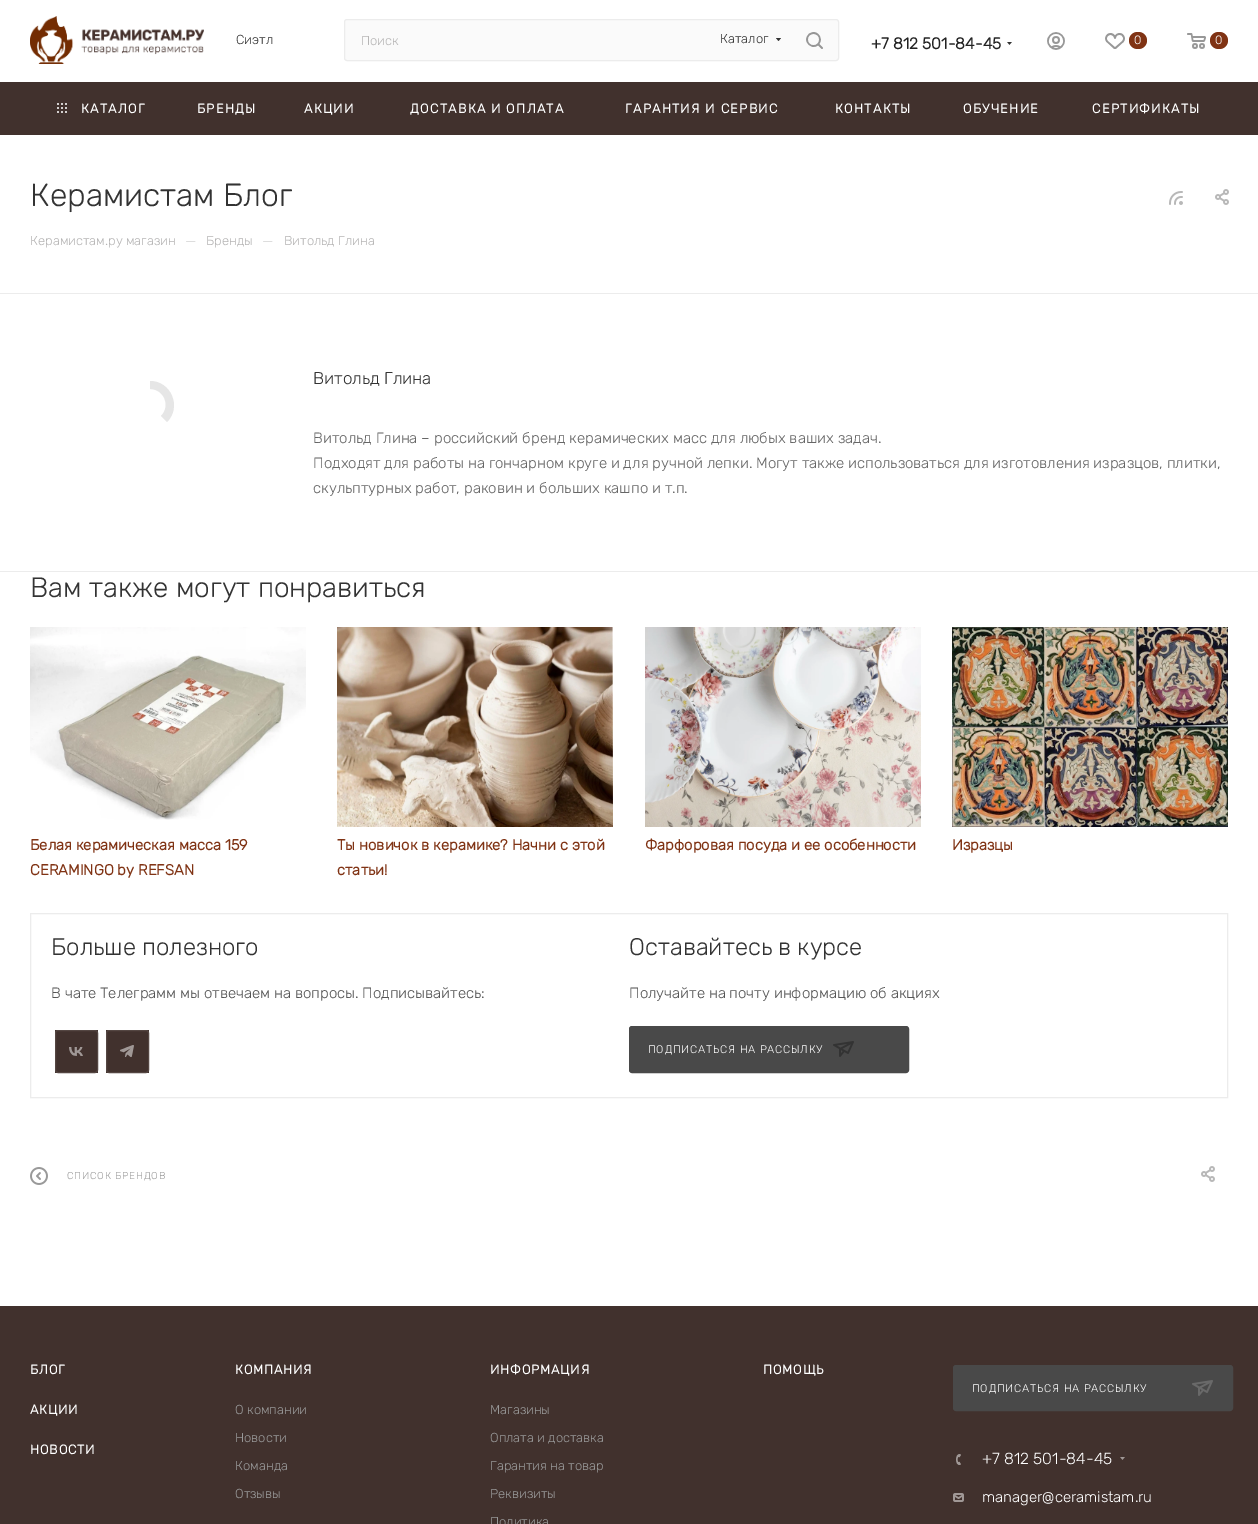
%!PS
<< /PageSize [1258 1524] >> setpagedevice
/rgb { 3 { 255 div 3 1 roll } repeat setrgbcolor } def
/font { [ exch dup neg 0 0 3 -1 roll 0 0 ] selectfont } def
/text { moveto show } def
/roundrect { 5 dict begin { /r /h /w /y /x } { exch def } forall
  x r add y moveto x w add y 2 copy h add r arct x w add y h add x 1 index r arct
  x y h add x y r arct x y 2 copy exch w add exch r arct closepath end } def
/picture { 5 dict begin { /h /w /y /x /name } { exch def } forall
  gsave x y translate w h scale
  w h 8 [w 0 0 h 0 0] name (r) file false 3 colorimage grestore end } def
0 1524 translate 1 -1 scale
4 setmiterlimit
255 255 255 rgb
0 0 1258 1524 rectfill
(img_01.rgb) 30 16 174 48 picture
250 250 250 rgb
344.5 19.5 494 41 2.5 roundrect gsave fill grestore
236 236 236 rgb
stroke
51 51 51 rgb
776 38 moveto 5 0 rlineto -2.5 3 rlineto closepath eofill
(img_02.rgb) 806 32 17 17 picture
(img_03.rgb) 1007 42 5 3 picture
(img_04.rgb) 1047 32 18 18 picture
(img_05.rgb) 1105 33 20 16 picture
128 51 20 rgb
1129 32 18 17 8.5 roundrect fill
(img_06.rgb) 1187 33 19 16 picture
1210 32 18 17 8.5 roundrect fill
65 49 45 rgb
0 82 1258 53 rectfill
(img_07.rgb) 57 103 10 10 picture
(img_08.rgb) 1169 191 14 14 picture
(img_09.rgb) 1215 189 14 16 picture
236 236 236 rgb
0 293 1258 1 rectfill
230 230 230 rgb
150 381 moveto 21 0 32 26 17 41 rcurveto -6 -6 rlineto 10 -10 3 -27 -11 -27 rcurveto closepath fill
236 236 236 rgb
0 571 1258 1 rectfill
(img_10.rgb) 30 627 276 193 picture
(img_11.rgb) 337 627 276 200 picture
(img_12.rgb) 645 627 276 200 picture
(img_13.rgb) 952 627 276 200 picture
30.5 913.5 1197 184 rectstroke
65 49 45 rgb
55 1030 43 43 rectfill
(img_14.rgb) 69 1047 14 9 picture
84 70 66 rgb
55.5 1030.5 42 42 2.5 roundrect stroke
65 49 45 rgb
106 1030 43 43 rectfill
(img_15.rgb) 120 1045 14 12 picture
84 70 66 rgb
106.5 1030.5 42 42 2.5 roundrect stroke
73 73 73 rgb
629.5 1026.5 279 46 2.5 roundrect gsave fill grestore
stroke
(img_16.rgb) 833 1041 21 16 picture
(img_17.rgb) 30 1167 18 18 picture
(img_09.rgb) 1201 1166 14 16 picture
65 49 45 rgb
0 1306 1258 218 rectfill
73 73 73 rgb
953.5 1365.5 279 45 2.5 roundrect gsave fill grestore
stroke
(img_18.rgb) 1192 1380 21 16 picture
(img_19.rgb) 956 1454 5 11 picture
(img_20.rgb) 1120 1457 5 3 picture
(img_21.rgb) 953 1493 11 9 picture
/Rubik-Light 13 font
51 51 51 rgb
(Сиэтл) 236 44 text
182 181 181 rgb
(Поиск) 361 45 text
51 51 51 rgb
(Каталог) 720 43 text
/Rubik-Bold 16 font
34 34 34 rgb
(+7 812 501-84-45) 871 49 text
/Rubik-Light 12 font
255 255 255 rgb
(0) 1134 44 text
(0) 1215 44 text
/Rubik-Bold 13 font
81 113 moveto 1.25 0 (КАТАЛОГ) ashow
197 113 moveto 1.25 0 (БРЕНДЫ) ashow
304 113 moveto 1.25 0 (АКЦИИ) ashow
410 113 moveto 1.25 0 (ДОСТАВКА И ОПЛАТА) ashow
625 113 moveto 1.25 0 (ГАРАНТИЯ И СЕРВИС) ashow
835 113 moveto 1.25 0 (КОНТАКТЫ) ashow
963 113 moveto 1.25 0 (ОБУЧЕНИЕ) ashow
1092 113 moveto 1.25 0 (СЕРТИФИКАТЫ) ashow
/Rubik-Light 32 font
51 51 51 rgb
(Керамистам Блог) 30 206 text
/Rubik-Light 13 font
182 181 181 rgb
(Керамистам.ру магазин) 30 245 text
/Rubik-Light 15 font
221 221 221 rgb
(—) 185 246 text
/Rubik-Light 13 font
182 181 181 rgb
(Бренды) 206 245 text
/Rubik-Light 15 font
221 221 221 rgb
(—) 262 246 text
/Rubik-Light 13 font
182 181 181 rgb
(Витольд Глина) 284 245 text
/Rubik-Light 17 font
51 51 51 rgb
(Витольд Глина) 313 384 text
/Rubik-Light 15 font
102 102 102 rgb
(Витольд Глина – российский бренд керамических масс для любых ваших задач.) 313 443 text
(Подходят для работы на гончарном круге и для ручной лепки. Могут также использоваться для изготовления изразцов, плитки,) 313 468 text
(скульптурных работ, раковин и больших кашпо и т.п.) 313 493 text
/Rubik-Light 28 font
51 51 51 rgb
(Вам также могут понравиться) 30 597 text
/Rubik-Bold 15 font
128 51 20 rgb
(Белая керамическая масса 159) 30 850 text
(CERAMINGO by REFSAN) 30 875 text
(Ты новичок в керамике? Начни с этой) 337 850 text
(статьи!) 337 875 text
(Фарфоровая посуда и ее особенности) 645 850 text
(Изразцы) 952 850 text
/Rubik-Light 24 font
51 51 51 rgb
(Больше полезного) 51 955 text
/Rubik-Light 15 font
85 85 85 rgb
(В чате Телеграмм мы отвечаем на вопросы. Подписывайтесь:) 51 998 text
/Rubik-Light 24 font
51 51 51 rgb
(Оставайтесь в курсе) 629 955 text
/Rubik-Light 15 font
85 85 85 rgb
(Получайте на почту информацию об акциях) 629 998 text
/Rubik-Light 11 font
255 255 255 rgb
648 1053 moveto 0.8 0 (ПОДПИСАТЬСЯ НА РАССЫЛКУ) ashow
/Rubik-Light 10 font
153 153 153 rgb
67 1179 moveto 0.8 0 (СПИСОК БРЕНДОВ) ashow
/Rubik-Bold 13 font
255 255 255 rgb
30 1374 moveto 0.8 0 (БЛОГ) ashow
30 1414 moveto 0.8 0 (АКЦИИ) ashow
30 1454 moveto 0.8 0 (НОВОСТИ) ashow
235 1374 moveto 0.8 0 (КОМПАНИЯ) ashow
/Rubik-Light 13 font
153 153 153 rgb
(О компании) 235 1414 text
(Новости) 235 1442 text
(Команда) 235 1470 text
(Отзывы) 235 1498 text
/Rubik-Bold 13 font
255 255 255 rgb
490 1374 moveto 0.8 0 (ИНФОРМАЦИЯ) ashow
/Rubik-Light 13 font
153 153 153 rgb
(Магазины) 490 1414 text
(Оплата и доставка) 490 1442 text
(Гарантия на товар) 490 1470 text
(Реквизиты) 490 1498 text
(Политика) 490 1526 text
/Rubik-Bold 13 font
255 255 255 rgb
763 1374 moveto 0.8 0 (ПОМОЩЬ) ashow
/Rubik-Light 11 font
972 1392 moveto 0.8 0 (ПОДПИСАТЬСЯ НА РАССЫЛКУ) ashow
/Rubik-Light 16 font
(+7 812 501-84-45) 982 1464 text
/Rubik-Light 15 font
(manager@ceramistam.ru) 982 1502 text
showpage
